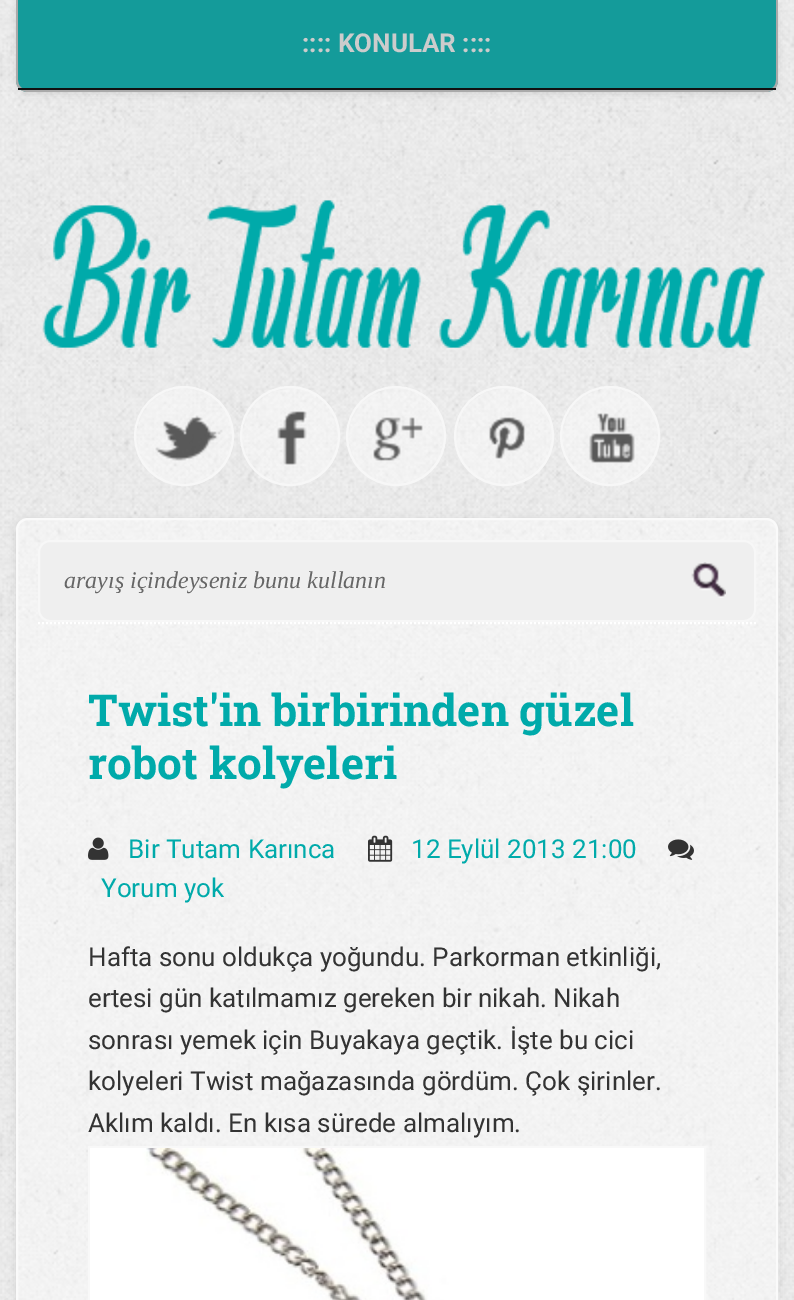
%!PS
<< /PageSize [794 1300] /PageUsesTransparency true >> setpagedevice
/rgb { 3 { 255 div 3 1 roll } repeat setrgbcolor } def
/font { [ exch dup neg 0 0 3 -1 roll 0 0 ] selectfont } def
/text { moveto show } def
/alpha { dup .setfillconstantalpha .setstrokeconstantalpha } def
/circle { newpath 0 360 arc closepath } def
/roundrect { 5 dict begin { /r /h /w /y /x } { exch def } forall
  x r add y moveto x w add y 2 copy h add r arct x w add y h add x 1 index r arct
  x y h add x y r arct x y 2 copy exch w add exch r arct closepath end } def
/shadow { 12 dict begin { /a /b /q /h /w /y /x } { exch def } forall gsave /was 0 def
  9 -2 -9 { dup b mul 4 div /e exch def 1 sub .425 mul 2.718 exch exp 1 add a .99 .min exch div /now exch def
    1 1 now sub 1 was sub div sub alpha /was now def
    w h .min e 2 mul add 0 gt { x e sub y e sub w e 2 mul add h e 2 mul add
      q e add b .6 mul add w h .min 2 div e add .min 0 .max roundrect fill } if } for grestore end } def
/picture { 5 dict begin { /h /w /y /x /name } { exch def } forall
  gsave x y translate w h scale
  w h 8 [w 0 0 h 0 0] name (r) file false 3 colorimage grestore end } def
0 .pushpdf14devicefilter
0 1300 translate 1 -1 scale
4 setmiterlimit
255 255 255 rgb
0 0 794 1300 rectfill
(img_01.rgb) 0 0 794 1300 picture
0 0 0 rgb
16 2 762 92 12 4 0.09 shadow
20 155 154 rgb
16 0 moveto 762 0 rlineto 0 80 rlineto 0 6.5 -5.5 12 -12 12 rcurveto -738 0 rlineto -6.5 0 -12 -5.5 -12 -12 rcurveto closepath fill
170 170 170 rgb
16 0 moveto 762 0 rlineto 0 80 rlineto 0 7 -5 12 -12 12 rcurveto -738 0 rlineto -7 0 -12 -5 -12 -12 rcurveto closepath 18 0 moveto 758 0 rlineto 0 80 rlineto 0 6 -4 10 -10 10 rcurveto -738 0 rlineto -6 0 -10 -4 -10 -10 rcurveto closepath eofill
17 17 17 rgb
18 88 758 2 rectfill
(img_02.rgb) 42 200 723 148 picture
(img_03.rgb) 136 386 98 100 picture
247 247 247 rgb
2 setlinewidth
184 436 49 circle stroke
(img_04.rgb) 242 386 98 100 picture
290 436 49 circle stroke
(img_05.rgb) 348 388 98 98 picture
396 436 49 circle stroke
(img_06.rgb) 456 386 98 100 picture
504 436 49 circle stroke
(img_07.rgb) 562 386 98 100 picture
610 436 49 circle stroke
0 0 0 rgb
16 520 762 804 12 4 0.09 shadow
(img_08.rgb) 16 518 762 782 picture
250 250 250 rgb
17 519 760 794 11 roundrect stroke
239 239 239 rgb
38 540 718 82 12 roundrect fill
(img_09.rgb) 691 562 35 36 picture
247 247 247 rgb
39 541 716 80 11 roundrect stroke
255 255 255 rgb
[2 2] 0 setdash
38 623 moveto 718 0 rlineto stroke
(img_10.rgb) 88 837 21 23 picture
(img_11.rgb) 368 835 25 27 picture
(img_12.rgb) 668 839 26 21 picture
248 248 248 rgb
[] 0 setdash
89 1147 616 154 rectstroke
(img_13.rgb) 90 1148 614 152 picture
/Roboto-Bold 26 font
204 204 204 rgb
(:::: KONULAR ::::) 302 52 text
/LiberationSerif-Italic 24 font
102 102 102 rgb
(arayış içindeyseniz bunu kullanın) 64 588 text
/RobotoSlab-Bold 44 font
0 170 170 rgb
(Twist'in birbirinden güzel) 88 726 text
(robot kolyeleri) 88 779 text
/Roboto-Regular 26 font
(Bir Tutam Karınca) 128 858 text
(12 Eylül 2013 21:00) 411 858 text
(Yorum yok) 101 897 text
51 51 51 rgb
(Hafta sonu oldukça yoğundu. Parkorman etkinliği,) 88 966 text
(ertesi gün katılmamız gereken bir nikah. Nikah) 88 1007 text
(sonrası yemek için Buyakaya geçtik. İşte bu cici) 88 1049 text
(kolyeleri Twist mağazasında gördüm. Çok şirinler.) 88 1090 text
(Aklım kaldı. En kısa sürede almalıyım.) 88 1132 text
.poppdf14devicefilter showpage
